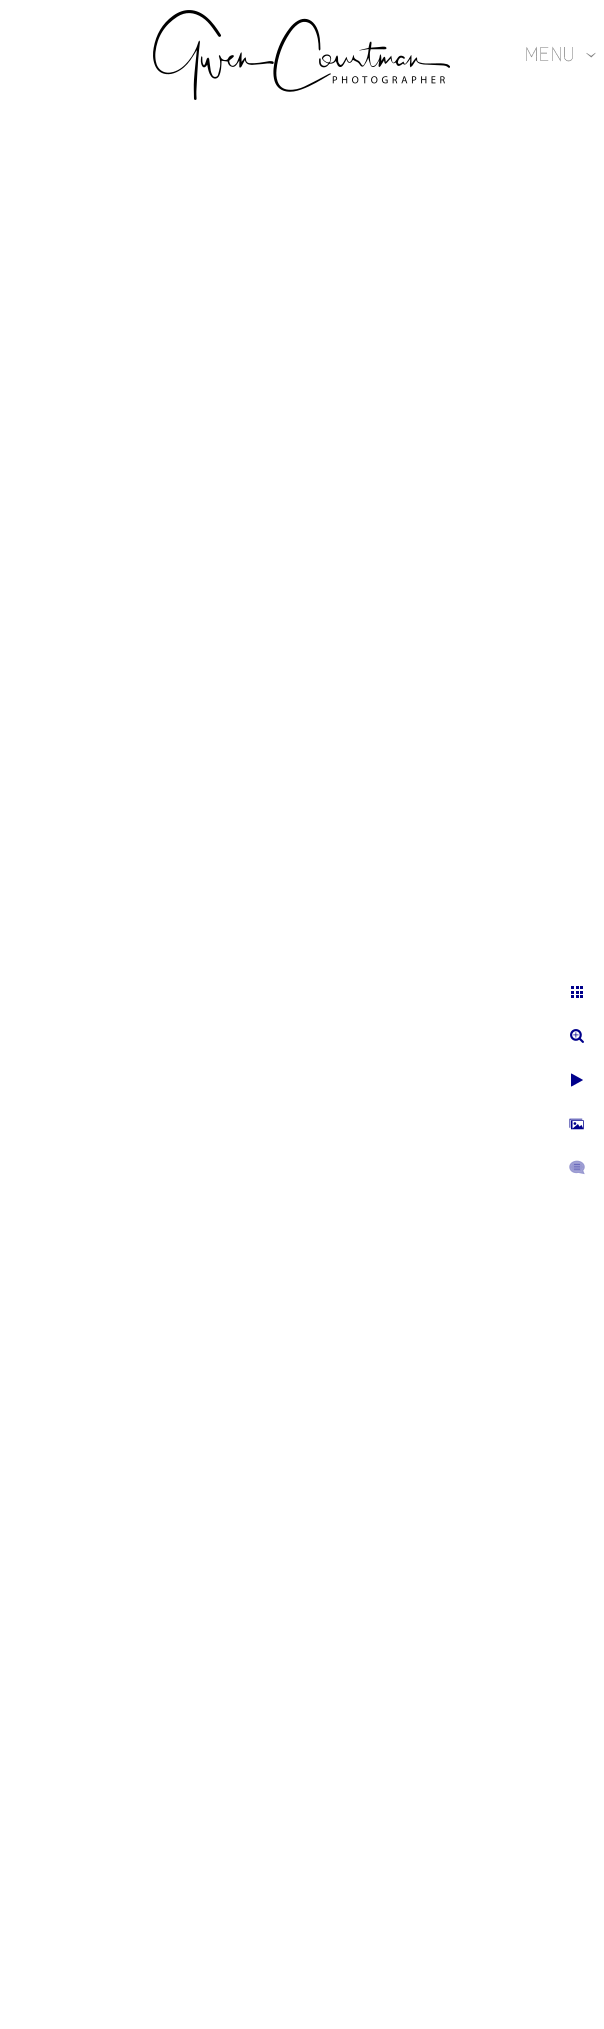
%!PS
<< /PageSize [604 2029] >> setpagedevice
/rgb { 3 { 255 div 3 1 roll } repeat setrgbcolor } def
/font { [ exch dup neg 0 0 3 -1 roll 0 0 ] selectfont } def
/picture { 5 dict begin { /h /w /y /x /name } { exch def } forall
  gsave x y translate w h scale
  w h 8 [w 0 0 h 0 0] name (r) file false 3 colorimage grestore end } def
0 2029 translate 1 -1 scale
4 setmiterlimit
255 255 255 rgb
0 0 604 2029 rectfill
(img_01.rgb) 153 10 297 90 picture
(img_02.rgb) 586 52 10 6 picture
(img_03.rgb) 571 986 12 12 picture
(img_04.rgb) 570 1029 14 14 picture
(img_05.rgb) 571 1073 12 14 picture
(img_06.rgb) 569 1118 15 12 picture
(img_07.rgb) 569 1160 16 15 picture
/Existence-Light 20 font
128 128 128 rgb
525 61 moveto 1 0 (MENU) ashow
showpage
